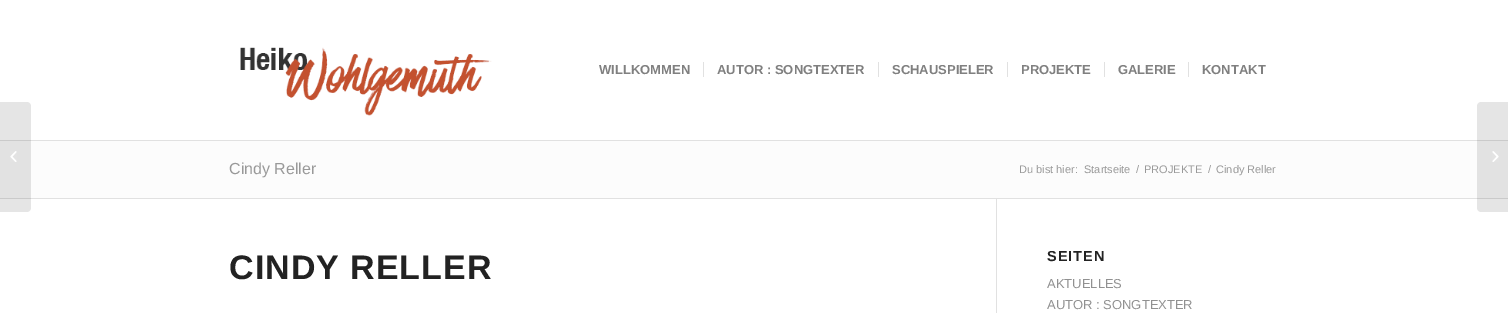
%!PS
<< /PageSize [1508 313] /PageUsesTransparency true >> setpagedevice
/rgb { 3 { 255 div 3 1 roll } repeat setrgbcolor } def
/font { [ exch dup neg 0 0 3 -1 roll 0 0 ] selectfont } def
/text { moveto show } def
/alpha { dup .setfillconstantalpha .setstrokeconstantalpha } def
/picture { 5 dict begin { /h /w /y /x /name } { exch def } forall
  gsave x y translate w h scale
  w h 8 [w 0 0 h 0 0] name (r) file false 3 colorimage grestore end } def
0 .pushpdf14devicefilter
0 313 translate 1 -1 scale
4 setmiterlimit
255 255 255 rgb
0 0 1508 313 rectfill
225 225 225 rgb
0 140 1508 1 rectfill
(img_01.rgb) 240 47 252 69 picture
703 62 1 15 rectfill
878 62 1 15 rectfill
1007 62 1 15 rectfill
1104 62 1 15 rectfill
1188 62 1 15 rectfill
252 252 252 rgb
0 141 1508 57 rectfill
225 225 225 rgb
0 198 1508 1 rectfill
0.1 alpha
0 0 0 rgb
0 102 moveto 27 0 rlineto 2 0 4 2 4 4 rcurveto 0 102 rlineto 0 2 -2 4 -4 4 rcurveto -27 0 rlineto closepath fill
1 alpha
(img_02.rgb) 10 151 7 11 picture
225 225 225 rgb
996 199 1 114 rectfill
0.1 alpha
0 0 0 rgb
1481 102 moveto 27 0 rlineto 0 110 rlineto -27 0 rlineto -2 0 -4 -2 -4 -4 rcurveto 0 -102 rlineto 0 -2 2 -4 4 -4 rcurveto closepath fill
1 alpha
(img_03.rgb) 1492 151 7 11 picture
/LiberationSans-Bold 13 font
128 128 128 rgb
(WILLKOMMEN) 599 74 text
(AUTOR : SONGTEXTER) 717 74 text
(SCHAUSPIELER) 892 74 text
(PROJEKTE) 1021 74 text
(GALERIE) 1118 74 text
(KONTAKT) 1202 74 text
/LiberationSans-Regular 16 font
153 153 153 rgb
(Cindy Reller) 229 174 text
/LiberationSans-Regular 11 font
(Du bist hier:) 1019 173 text
(Startseite) 1084 173 text
(/) 1136 173 text
(PROJEKTE) 1144 173 text
(/) 1208 173 text
(Cindy Reller) 1216 173 text
/LiberationSans-Bold 34 font
34 34 34 rgb
229 279 moveto 1 0 (CINDY RELLER) ashow
/LiberationSans-Bold 14.5 font
1047 261 moveto 1 0 (SEITEN) ashow
/LiberationSans-Regular 13 font
145 145 145 rgb
(AKTUELLES) 1047 288 text
(AUTOR : SONGTEXTER) 1047 309 text
.poppdf14devicefilter showpage
